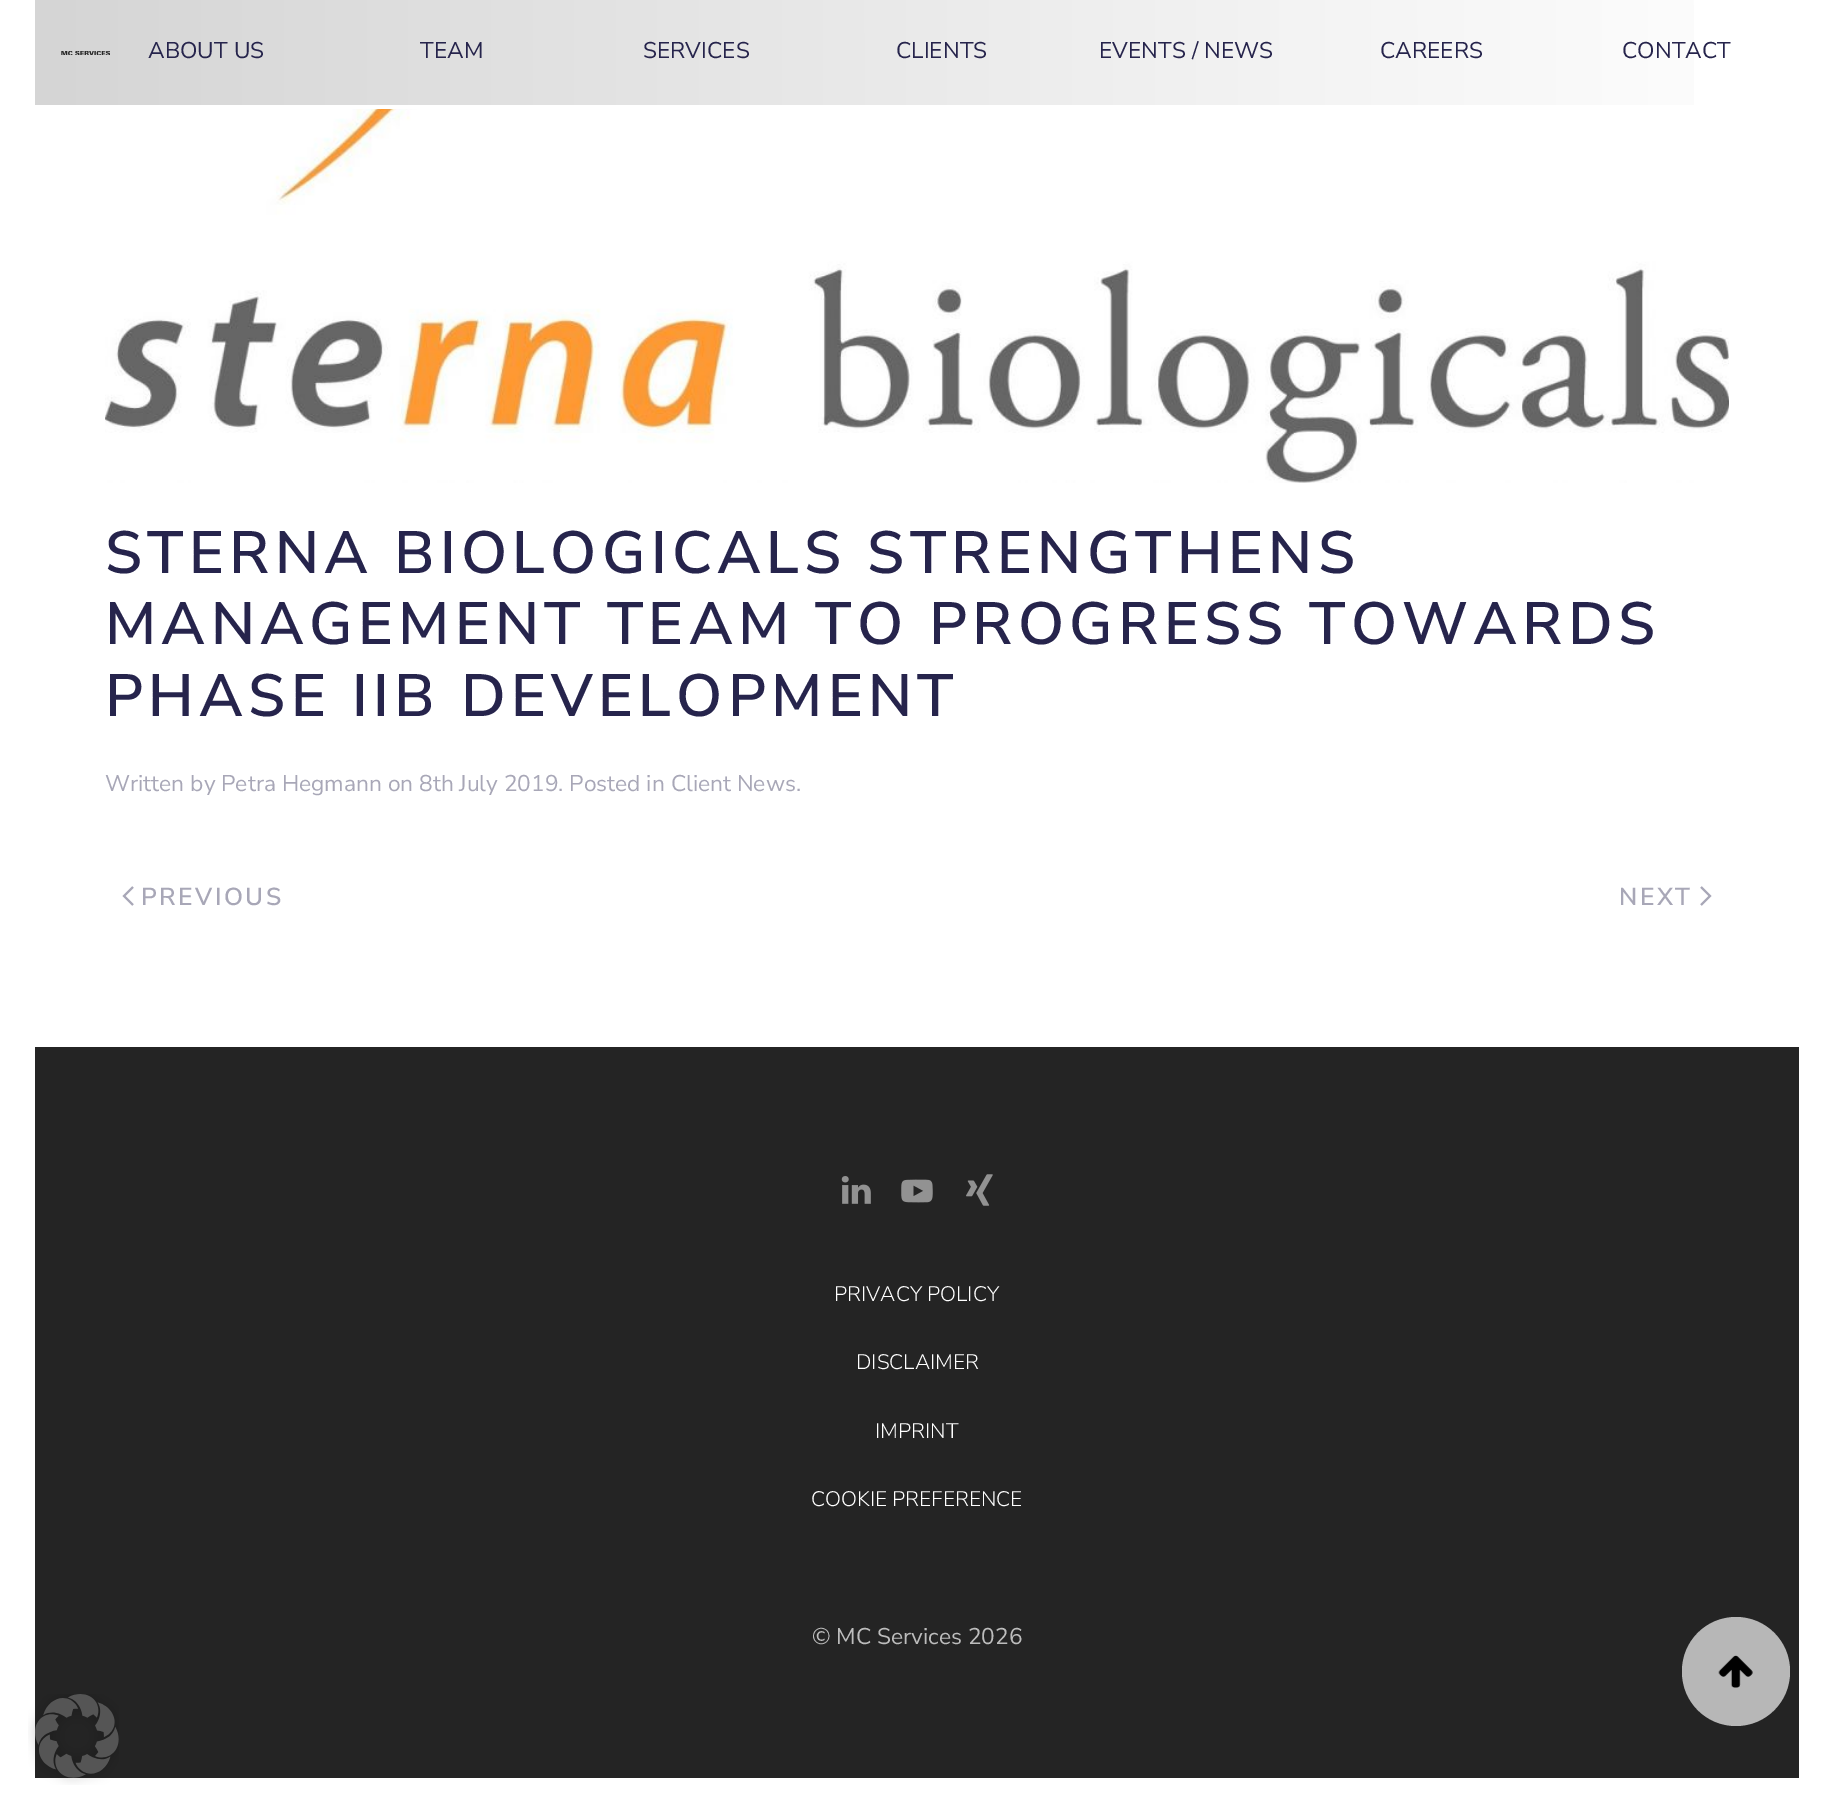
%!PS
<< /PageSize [1834 1813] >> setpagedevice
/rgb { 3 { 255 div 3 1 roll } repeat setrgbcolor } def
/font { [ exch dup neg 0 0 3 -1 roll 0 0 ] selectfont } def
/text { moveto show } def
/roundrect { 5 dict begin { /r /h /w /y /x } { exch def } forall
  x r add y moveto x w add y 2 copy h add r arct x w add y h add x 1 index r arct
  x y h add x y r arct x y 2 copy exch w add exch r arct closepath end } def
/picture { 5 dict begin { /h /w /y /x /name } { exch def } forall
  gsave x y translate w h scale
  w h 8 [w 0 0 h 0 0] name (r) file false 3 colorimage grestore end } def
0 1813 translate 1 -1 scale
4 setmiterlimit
255 255 255 rgb
0 0 1834 1813 rectfill
gsave 35 0 moveto 1659 0 rlineto 0 105 rlineto -1659 0 rlineto closepath clip newpath
<< /ShadingType 2 /ColorSpace /DeviceRGB /Coords [35 53 1799 52] /Extend [true true] /Function << /FunctionType 2 /Domain [0 1] /C0 [0.835 0.835 0.835] /C1 [1 1 1] /N 1 >> >> shfill grestore
(img_01.rgb) 61 51 49 4 picture
(img_02.rgb) 105 109 1624 374 picture
168 167 183 rgb
2.1 setlinewidth
133 887 moveto -9 9 rlineto 9 9 rlineto stroke
1701 887 moveto 9 9 rlineto -9 9 rlineto stroke
36 36 36 rgb
35 1047 1764 731 rectfill
(img_03.rgb) 841 1176 30 28 picture
(img_04.rgb) 901 1179 32 24 picture
(img_05.rgb) 966 1174 27 32 picture
183 183 183 rgb
1682 1617 108 109 54 roundrect fill
(img_06.rgb) 1718 1655 35 33 picture
(img_07.rgb) 28 1694 91 91 picture
/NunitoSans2-ExtraLight 22.75 font
38 36 76 rgb
(ABOUT US) 148 58 text
(TEAM) 420 58 text
(SERVICES) 643 58 text
(CLIENTS) 896 58 text
(EVENTS / NEWS) 1099 58 text
(CAREERS) 1380 58 text
(CONTACT) 1622 58 text
/NunitoSans-ExtraLight 59.5 font
105 573 moveto 5.25 0 (STERNA BIOLOGICALS STRENGTHENS) ashow
105 644 moveto 5.25 0 (MANAGEMENT TEAM TO PROGRESS TOWARDS) ashow
105 716 moveto 5.25 0 (PHASE IIB DEVELOPMENT) ashow
/NunitoSans2-ExtraLight 22.75 font
168 167 183 rgb
(Written by Petra Hegmann on 8th July 2019. Posted in Client News.) 105 791 text
/NunitoSans-ExtraLight 24.5 font
141 905 moveto 2.5 0 (PREVIOUS) ashow
1619 905 moveto 2.5 0 (NEXT) ashow
/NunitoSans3-ExtraLight 21 font
255 255 255 rgb
(PRIVACY POLICY) 834 1301 text
(DISCLAIMER) 856 1369 text
(IMPRINT) 875 1438 text
(COOKIE PREFERENCE) 811 1506 text
/NunitoSans2-ExtraLight 22.75 font
189 189 189 rgb
(© MC Services 2026) 812 1644 text
showpage
